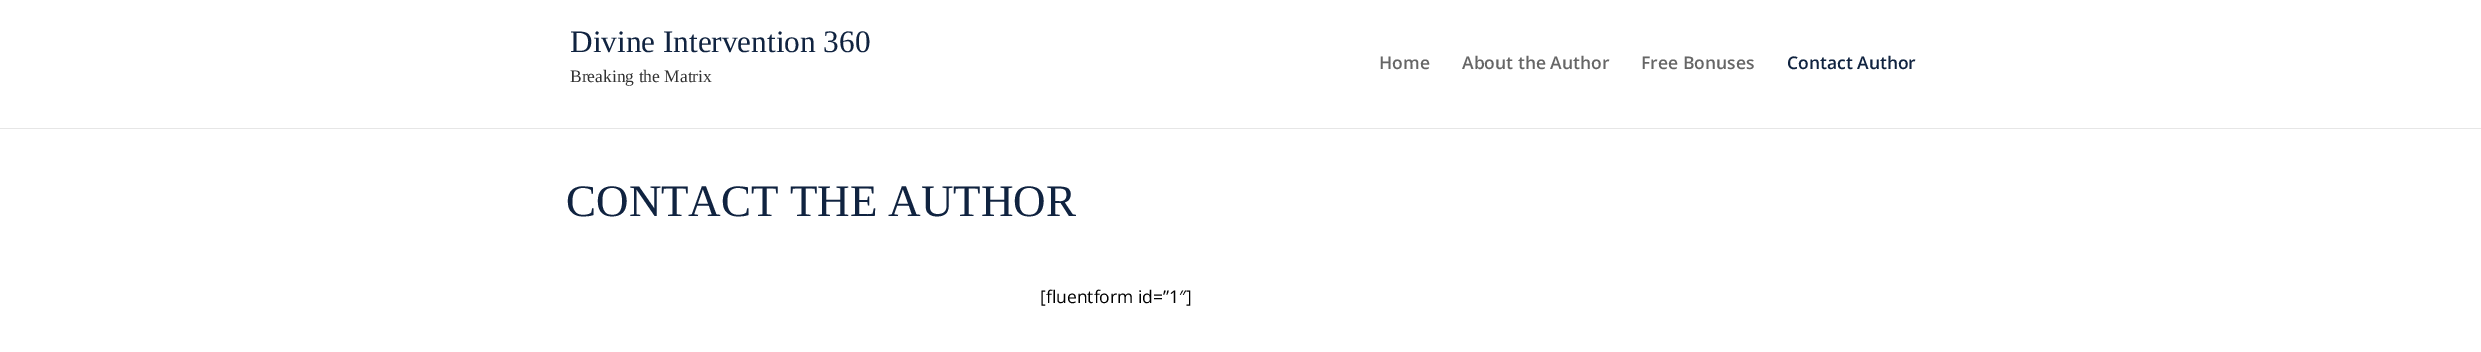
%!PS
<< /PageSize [2481 352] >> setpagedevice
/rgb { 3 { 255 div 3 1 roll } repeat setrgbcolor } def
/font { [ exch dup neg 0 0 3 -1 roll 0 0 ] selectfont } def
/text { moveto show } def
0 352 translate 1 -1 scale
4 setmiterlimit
255 255 255 rgb
0 0 2481 352 rectfill
230 230 230 rgb
0 128 2481 1 rectfill
/LiberationSerif-Regular 31.25 font
16 35 64 rgb
(Divine Intervention 360) 570 52 text
/LiberationSerif-Regular 17.5 font
51 51 51 rgb
(Breaking the Matrix) 570 82 text
/OpenSans-SemiBold 17.5 font
102 102 102 rgb
(Home) 1379 69 text
(About the Author) 1462 69 text
(Free Bonuses) 1641 69 text
16 35 64 rgb
(Contact Author) 1787 69 text
/LiberationSerif-Regular 45 font
(CONTACT THE AUTHOR) 566 216 text
/OpenSans-Regular 17.5 font
0 0 0 rgb
([fluentform id=”1″]) 1040 303 text
showpage
